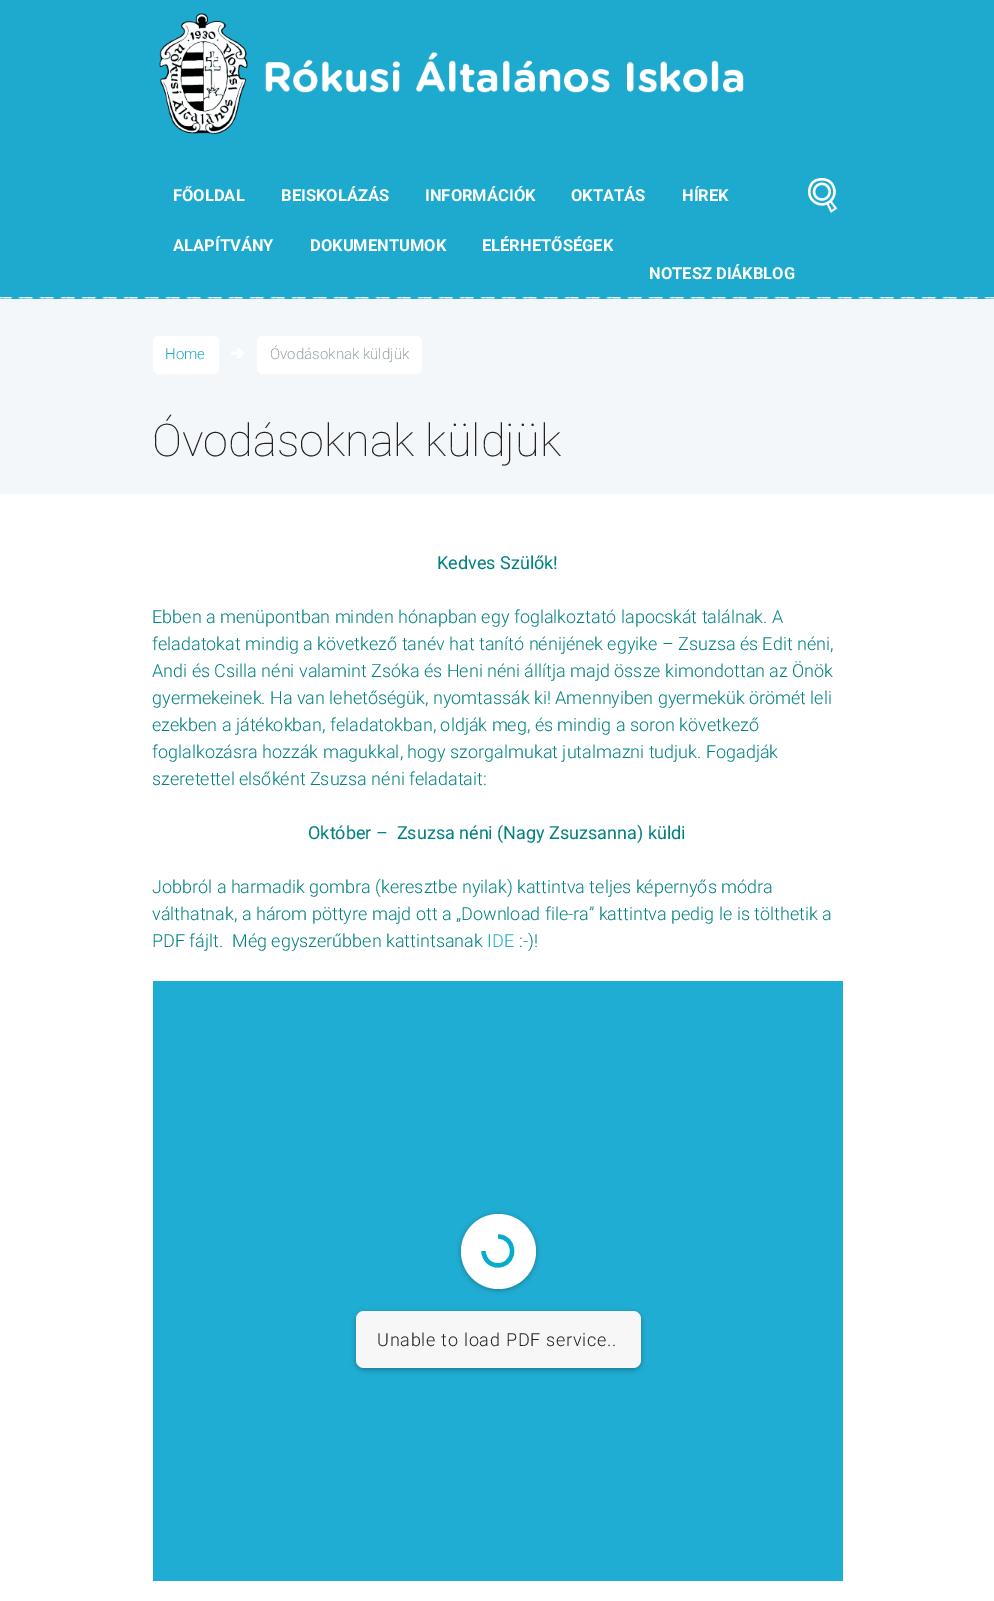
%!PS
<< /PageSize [994 1601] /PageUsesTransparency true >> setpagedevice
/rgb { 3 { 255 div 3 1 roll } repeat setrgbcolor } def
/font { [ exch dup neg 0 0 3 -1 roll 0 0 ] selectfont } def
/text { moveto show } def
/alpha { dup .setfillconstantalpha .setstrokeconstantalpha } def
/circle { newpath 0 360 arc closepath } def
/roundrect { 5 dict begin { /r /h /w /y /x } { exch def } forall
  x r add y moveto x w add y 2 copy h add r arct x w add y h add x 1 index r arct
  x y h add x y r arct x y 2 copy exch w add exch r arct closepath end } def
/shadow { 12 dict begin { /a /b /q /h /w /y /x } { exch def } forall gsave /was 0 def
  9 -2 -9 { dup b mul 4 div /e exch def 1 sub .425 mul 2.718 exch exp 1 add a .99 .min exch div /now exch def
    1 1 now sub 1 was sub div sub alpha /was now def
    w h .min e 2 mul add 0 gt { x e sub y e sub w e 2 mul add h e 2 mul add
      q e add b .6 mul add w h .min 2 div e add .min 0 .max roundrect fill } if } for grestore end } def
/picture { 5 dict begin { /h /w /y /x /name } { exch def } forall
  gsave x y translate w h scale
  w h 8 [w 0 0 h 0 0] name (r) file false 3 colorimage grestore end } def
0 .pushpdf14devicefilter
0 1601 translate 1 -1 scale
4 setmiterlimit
255 255 255 rgb
0 0 994 1601 rectfill
30 170 206 rgb
0 0 994 299 rectfill
(img_01.rgb) 0 297 994 2 picture
(img_02.rgb) 159 13 585 122 picture
(img_03.rgb) 807 177 31 36 picture
244 247 249 rgb
0 299 994 195 rectfill
255 255 255 rgb
153 336 66 38 6 roundrect fill
(img_04.rgb) 231 348 13 11 picture
257 336 165 38 6 roundrect fill
32 173 212 rgb
153 981 690 600 rectfill
0 0 0 rgb
461 1215 75 75 37.5 3 0.3 shadow
255 255 255 rgb
498.5 1251.5 37.5 circle fill
7 171 204 rgb
4.3 setlinewidth
498 1236.5 moveto 17 0 19.5 25 3 28.5 rcurveto -4 1 -8 0 -11 -2 rcurveto -4 -2.5 -6.5 -7.5 -6.5 -12 rcurveto stroke
0 0 0 rgb
356 1313 285 57 8 3 0.3 shadow
247 247 247 rgb
356 1311 285 57 8 roundrect fill
/Roboto-Bold 16.5 font
255 255 255 rgb
(FŐOLDAL) 173 201 text
(BEISKOLÁZÁS) 281 201 text
(INFORMÁCIÓK) 425 201 text
(OKTATÁS) 571 201 text
(HÍREK) 682 201 text
(ALAPÍTVÁNY) 173 251 text
(DOKUMENTUMOK) 310 251 text
(ELÉRHETŐSÉGEK) 482 251 text
(NOTESZ DIÁKBLOG) 649 279 text
/Roboto-Light 15 font
30 170 206 rgb
(Home) 165 359 text
152 163 169 rgb
(Óvodásoknak küldjük) 270 359 text
/Roboto-Thin 45 font
34 34 34 rgb
(Óvodásoknak küldjük) 152 456 text
/Roboto-Regular 18 font
0 128 128 rgb
(Kedves Szülők!) 437 569 text
/Roboto-Light 18 font
(Ebben a menüpontban minden hónapban egy foglalkoztató lapocskát találnak. A) 152 623 text
(feladatokat mindig a következő tanév hat tanító nénijének egyike – Zsuzsa és Edit néni,) 152 650 text
(Andi és Csilla néni valamint Zsóka és Heni néni állítja majd össze kimondottan az Önök) 152 677 text
(gyermekeinek. Ha van lehetőségük, nyomtassák ki! Amennyiben gyermekük örömét leli) 152 704 text
(ezekben a játékokban, feladatokban, oldják meg, és mindig a soron következő) 152 731 text
(foglalkozásra hozzák magukkal, hogy szorgalmukat jutalmazni tudjuk. Fogadják) 152 758 text
(szeretettel elsőként Zsuzsa néni feladatait:) 152 785 text
/Roboto-Regular 18 font
(Október –  Zsuzsa néni \(Nagy Zsuzsanna\) küldi) 308 839 text
/Roboto-Light 18 font
(Jobbról a harmadik gombra \(keresztbe nyilak\) kattintva teljes képernyős módra) 152 893 text
(válthatnak, a három pöttyre majd ott a „Download file-ra” kattintva pedig le is tölthetik a) 152 920 text
(PDF fájlt.  Még egyszerűbben kattintsanak) 152 947 text
30 170 206 rgb
(IDE) 487 947 text
0 128 128 rgb
(:-\)!) 519 947 text
34 34 34 rgb
377 1346 moveto 0.75 0 (Unable to load PDF service..) ashow
.poppdf14devicefilter showpage
